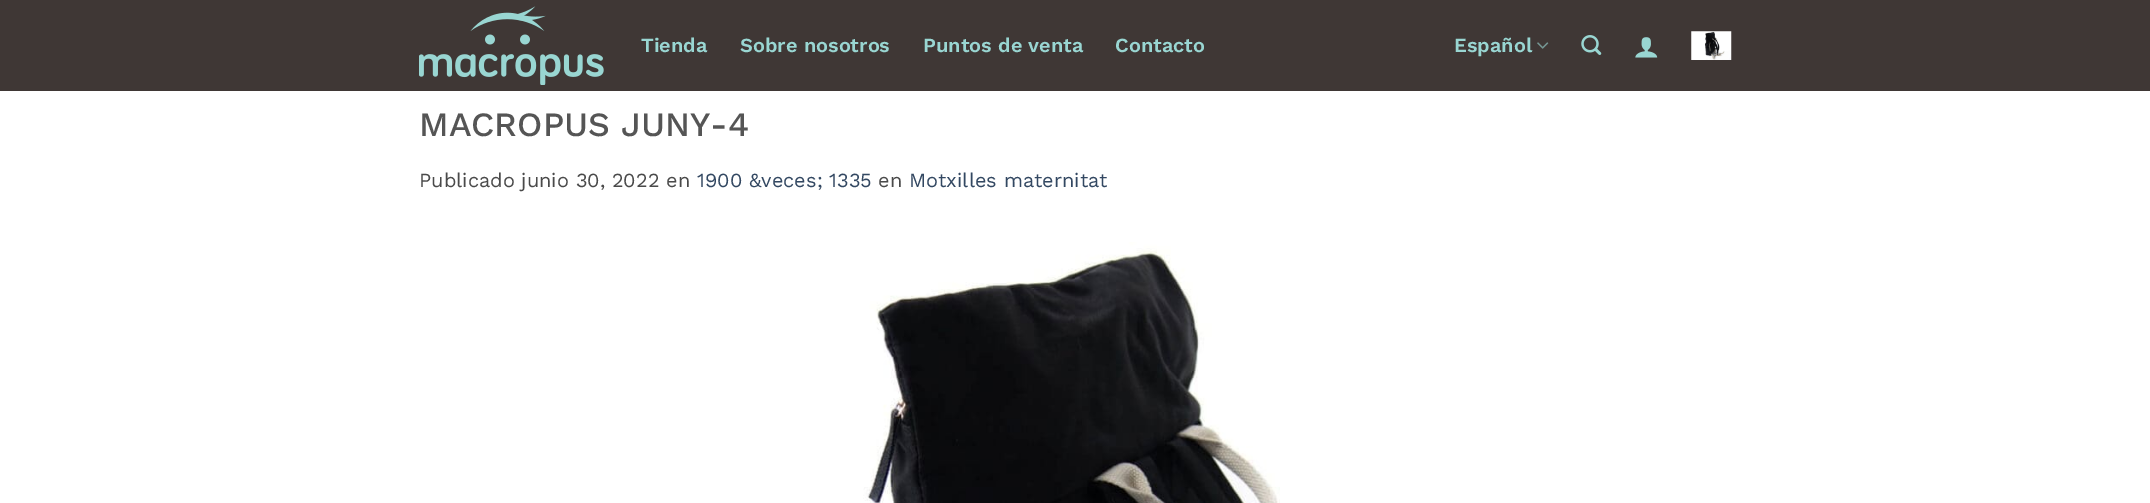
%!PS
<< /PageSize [2150 503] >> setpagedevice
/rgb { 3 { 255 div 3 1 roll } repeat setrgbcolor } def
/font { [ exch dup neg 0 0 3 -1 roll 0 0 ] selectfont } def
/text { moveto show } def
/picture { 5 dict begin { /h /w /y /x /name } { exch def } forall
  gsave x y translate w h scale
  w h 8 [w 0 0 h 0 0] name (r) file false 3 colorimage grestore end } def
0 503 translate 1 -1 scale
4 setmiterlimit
255 255 255 rgb
0 0 2150 503 rectfill
63 55 53 rgb
0 0 2150 91 rectfill
(img_01.rgb) 419 6 185 79 picture
(img_02.rgb) 1537 42 12 7 picture
(img_03.rgb) 1581 35 21 20 picture
(img_04.rgb) 1635 37 23 21 picture
(img_05.rgb) 1691 31 41 29 picture
(img_06.rgb) 863 242 417 261 picture
/WorkSans-SemiBold 20 font
153 214 210 rgb
(Tienda) 641 52 text
(Sobre nosotros) 740 52 text
(Puntos de venta) 923 52 text
(Contacto) 1115 52 text
(Español) 1454 52 text
/WorkSans-Medium 34 font
85 85 85 rgb
(MACROPUS JUNY-4) 419 136 text
/WorkSans-Regular 20 font
74 74 74 rgb
(Publicado junio 30, 2022 en) 419 187 text
51 72 98 rgb
(1900 &veces; 1335) 697 187 text
74 74 74 rgb
(en) 878 187 text
51 72 98 rgb
(Motxilles maternitat) 909 187 text
showpage
